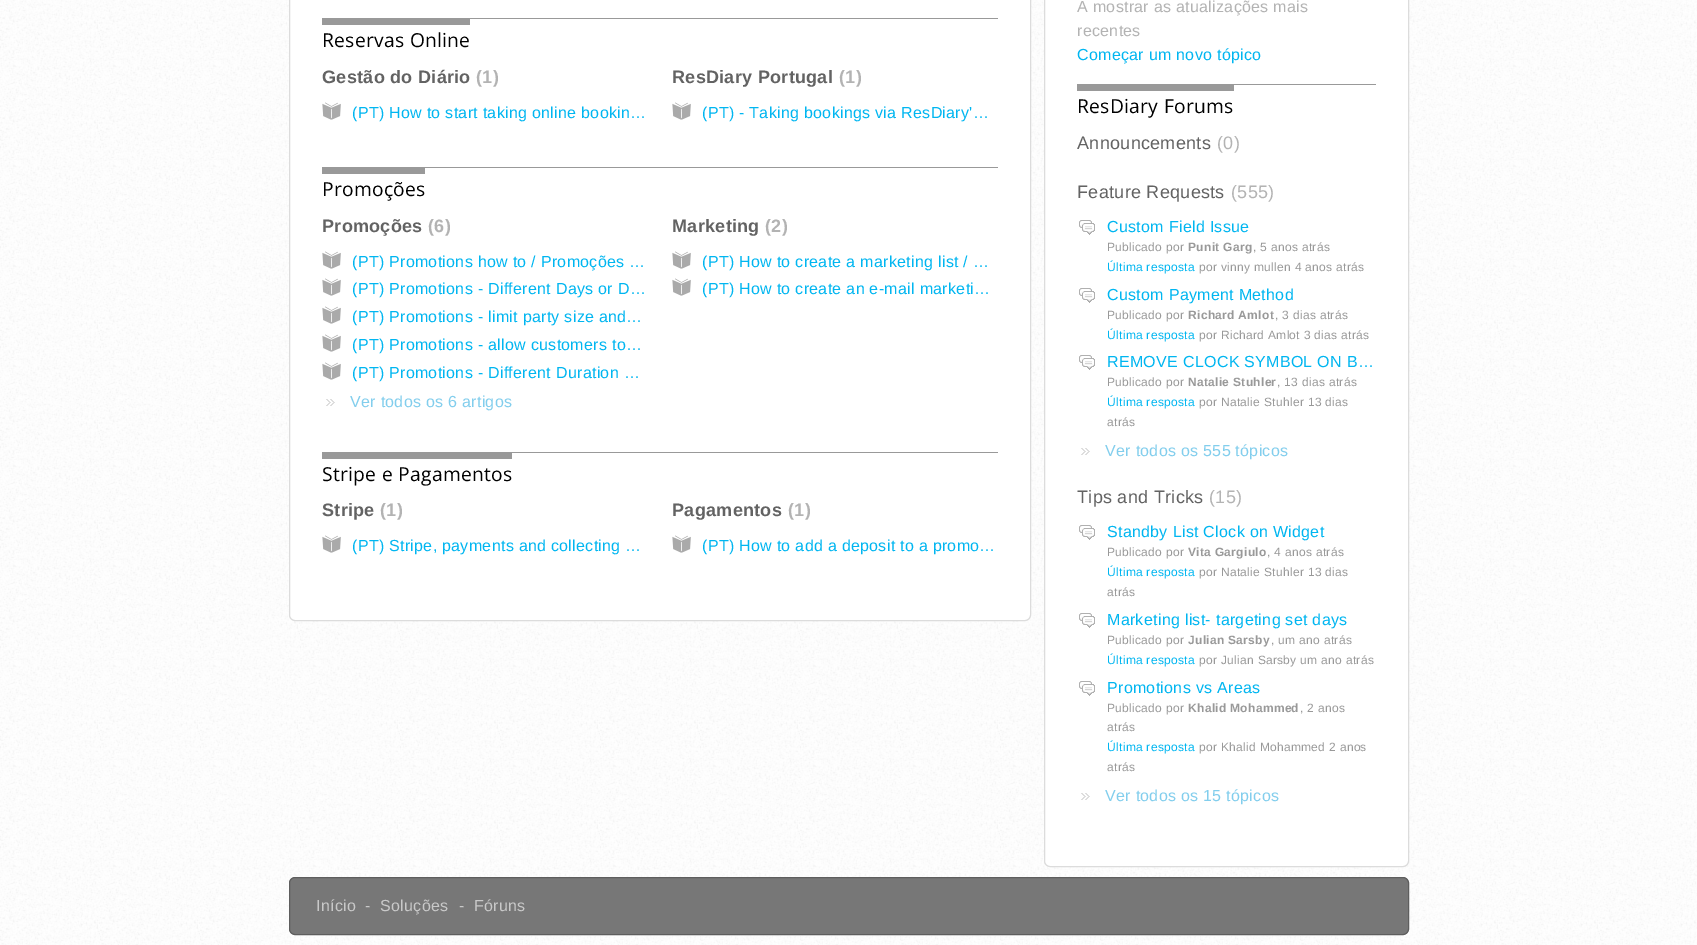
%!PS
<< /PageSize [1697 945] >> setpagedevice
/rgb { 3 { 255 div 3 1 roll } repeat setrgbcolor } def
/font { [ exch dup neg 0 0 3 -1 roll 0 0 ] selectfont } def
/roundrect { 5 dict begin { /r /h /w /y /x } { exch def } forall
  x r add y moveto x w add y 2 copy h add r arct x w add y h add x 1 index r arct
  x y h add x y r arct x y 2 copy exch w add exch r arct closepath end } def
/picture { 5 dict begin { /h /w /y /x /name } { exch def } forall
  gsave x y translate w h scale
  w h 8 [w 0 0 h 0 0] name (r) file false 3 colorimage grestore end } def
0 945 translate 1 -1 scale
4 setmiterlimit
255 255 255 rgb
0 0 1697 945 rectfill
(img_01.rgb) 0 0 1697 945 picture
289.5 -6.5 741 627 5.5 roundrect gsave fill grestore
220 220 220 rgb
stroke
153 153 153 rgb
322 18 676 1 rectfill
322 19 148 6 rectfill
(img_02.rgb) 322 102 19 18 picture
(img_02.rgb) 672 102 19 18 picture
322 167 676 1 rectfill
322 168 103 6 rectfill
(img_02.rgb) 322 251 19 18 picture
(img_02.rgb) 322 278 19 18 picture
(img_02.rgb) 322 306 19 18 picture
(img_02.rgb) 322 334 19 18 picture
(img_02.rgb) 322 362 19 18 picture
(img_03.rgb) 326 399 9 7 picture
(img_02.rgb) 672 251 19 18 picture
(img_02.rgb) 672 278 19 18 picture
322 452 676 1 rectfill
322 453 190 6 rectfill
(img_02.rgb) 322 535 19 18 picture
(img_02.rgb) 672 535 19 18 picture
255 255 255 rgb
1044.5 -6.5 364 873 5.5 roundrect gsave fill grestore
220 220 220 rgb
stroke
153 153 153 rgb
1077 84 299 1 rectfill
1077 85 157 6 rectfill
(img_04.rgb) 1079 220 16 15 picture
(img_04.rgb) 1079 288 16 15 picture
(img_04.rgb) 1079 355 16 15 picture
(img_03.rgb) 1081 448 9 7 picture
(img_04.rgb) 1079 525 16 15 picture
(img_04.rgb) 1079 613 16 15 picture
(img_04.rgb) 1079 681 16 15 picture
(img_03.rgb) 1081 793 9 7 picture
119 119 119 rgb
289.5 877.5 1119 57 5.5 roundrect gsave fill grestore
94 94 94 rgb
stroke
/OpenSans-Regular 19.25 font
0 0 0 rgb
322 47 moveto 0.3 0 (Reservas Online) ashow
/LiberationSans-Bold 18 font
99 99 99 rgb
322 83 moveto 0.3 0 (Gestão do Diário) ashow
179 179 179 rgb
476 83 moveto 0.3 0 (\(1\)) ashow
/LiberationSans-Regular 16 font
0 182 241 rgb
352 118 moveto 0.3 0 (\(PT\) How to start taking online bookin…) ashow
/LiberationSans-Bold 18 font
99 99 99 rgb
672 83 moveto 0.3 0 (ResDiary Portugal) ashow
179 179 179 rgb
839 83 moveto 0.3 0 (\(1\)) ashow
/LiberationSans-Regular 16 font
0 182 241 rgb
702 118 moveto 0.3 0 (\(PT\) - Taking bookings via ResDiary'…) ashow
/OpenSans-Regular 19.25 font
0 0 0 rgb
322 196 moveto 0.3 0 (Promoções) ashow
/LiberationSans-Bold 18 font
99 99 99 rgb
322 232 moveto 0.3 0 (Promoções) ashow
179 179 179 rgb
428 232 moveto 0.3 0 (\(6\)) ashow
/LiberationSans-Regular 16 font
0 182 241 rgb
352 267 moveto 0.3 0 (\(PT\) Promotions how to / Promoções …) ashow
352 294 moveto 0.3 0 (\(PT\) Promotions - Different Days or D…) ashow
352 322 moveto 0.3 0 (\(PT\) Promotions - limit party size and…) ashow
352 350 moveto 0.3 0 (\(PT\) Promotions - allow customers to…) ashow
352 378 moveto 0.3 0 (\(PT\) Promotions - Different Duration …) ashow
130 206 237 rgb
350 407 moveto 0.3 0 (Ver todos os 6 artigos) ashow
/LiberationSans-Bold 18 font
99 99 99 rgb
672 232 moveto 0.3 0 (Marketing) ashow
179 179 179 rgb
765 232 moveto 0.3 0 (\(2\)) ashow
/LiberationSans-Regular 16 font
0 182 241 rgb
702 267 moveto 0.3 0 (\(PT\) How to create a marketing list / …) ashow
702 294 moveto 0.3 0 (\(PT\) How to create an e-mail marketi…) ashow
/OpenSans-Regular 19.25 font
0 0 0 rgb
322 481 moveto 0.3 0 (Stripe e Pagamentos) ashow
/LiberationSans-Bold 18 font
99 99 99 rgb
322 516 moveto 0.3 0 (Stripe) ashow
179 179 179 rgb
380 516 moveto 0.3 0 (\(1\)) ashow
/LiberationSans-Regular 16 font
0 182 241 rgb
352 551 moveto 0.3 0 (\(PT\) Stripe, payments and collecting …) ashow
/LiberationSans-Bold 18 font
99 99 99 rgb
672 516 moveto 0.3 0 (Pagamentos) ashow
179 179 179 rgb
788 516 moveto 0.3 0 (\(1\)) ashow
/LiberationSans-Regular 16 font
0 182 241 rgb
702 551 moveto 0.3 0 (\(PT\) How to add a deposit to a promo…) ashow
179 179 179 rgb
1077 12 moveto 0.3 0 (A mostrar as atualizações mais) ashow
1077 36 moveto 0.3 0 (recentes) ashow
0 182 241 rgb
1077 60 moveto 0.3 0 (Começar um novo tópico) ashow
/OpenSans-Regular 19.25 font
0 0 0 rgb
1077 113 moveto 0.3 0 (ResDiary Forums) ashow
/LiberationSans-Regular 18 font
99 99 99 rgb
1077 149 moveto 0.3 0 (Announcements) ashow
179 179 179 rgb
1217 149 moveto 0.3 0 (\(0\)) ashow
99 99 99 rgb
1077 198 moveto 0.3 0 (Feature Requests) ashow
179 179 179 rgb
1231 198 moveto 0.3 0 (\(555\)) ashow
/LiberationSans-Regular 16 font
0 182 241 rgb
1107 232 moveto 0.3 0 (Custom Field Issue) ashow
/LiberationSans-Regular 12 font
153 153 153 rgb
1107 251 moveto 0.3 0 (Publicado por) ashow
/LiberationSans-Bold 12 font
1188 251 moveto 0.3 0 (Punit Garg) ashow
/LiberationSans-Regular 12 font
1253 251 moveto 0.3 0 (, 5 anos atrás) ashow
0 182 241 rgb
1107 271 moveto 0.3 0 (Última resposta) ashow
153 153 153 rgb
1199 271 moveto 0.3 0 (por vinny mullen 4 anos atrás) ashow
/LiberationSans-Regular 16 font
0 182 241 rgb
1107 300 moveto 0.3 0 (Custom Payment Method) ashow
/LiberationSans-Regular 12 font
153 153 153 rgb
1107 319 moveto 0.3 0 (Publicado por) ashow
/LiberationSans-Bold 12 font
1188 319 moveto 0.3 0 (Richard Amlot) ashow
/LiberationSans-Regular 12 font
1275 319 moveto 0.3 0 (, 3 dias atrás) ashow
0 182 241 rgb
1107 339 moveto 0.3 0 (Última resposta) ashow
153 153 153 rgb
1199 339 moveto 0.3 0 (por Richard Amlot 3 dias atrás) ashow
/LiberationSans-Regular 16 font
0 182 241 rgb
1107 367 moveto 0.3 0 (REMOVE CLOCK SYMBOL ON B…) ashow
/LiberationSans-Regular 12 font
153 153 153 rgb
1107 386 moveto 0.3 0 (Publicado por) ashow
/LiberationSans-Bold 12 font
1188 386 moveto 0.3 0 (Natalie Stuhler) ashow
/LiberationSans-Regular 12 font
1277 386 moveto 0.3 0 (, 13 dias atrás) ashow
0 182 241 rgb
1107 406 moveto 0.3 0 (Última resposta) ashow
153 153 153 rgb
1199 406 moveto 0.3 0 (por Natalie Stuhler 13 dias) ashow
1107 426 moveto 0.3 0 (atrás) ashow
/LiberationSans-Regular 16 font
130 206 237 rgb
1105 456 moveto 0.3 0 (Ver todos os 555 tópicos) ashow
/LiberationSans-Regular 18 font
99 99 99 rgb
1077 503 moveto 0.3 0 (Tips and Tricks) ashow
179 179 179 rgb
1209 503 moveto 0.3 0 (\(15\)) ashow
/LiberationSans-Regular 16 font
0 182 241 rgb
1107 537 moveto 0.3 0 (Standby List Clock on Widget) ashow
/LiberationSans-Regular 12 font
153 153 153 rgb
1107 556 moveto 0.3 0 (Publicado por) ashow
/LiberationSans-Bold 12 font
1188 556 moveto 0.3 0 (Vita Gargiulo) ashow
/LiberationSans-Regular 12 font
1267 556 moveto 0.3 0 (, 4 anos atrás) ashow
0 182 241 rgb
1107 576 moveto 0.3 0 (Última resposta) ashow
153 153 153 rgb
1199 576 moveto 0.3 0 (por Natalie Stuhler 13 dias) ashow
1107 596 moveto 0.3 0 (atrás) ashow
/LiberationSans-Regular 16 font
0 182 241 rgb
1107 625 moveto 0.3 0 (Marketing list- targeting set days) ashow
/LiberationSans-Regular 12 font
153 153 153 rgb
1107 644 moveto 0.3 0 (Publicado por) ashow
/LiberationSans-Bold 12 font
1188 644 moveto 0.3 0 (Julian Sarsby) ashow
/LiberationSans-Regular 12 font
1271 644 moveto 0.3 0 (, um ano atrás) ashow
0 182 241 rgb
1107 664 moveto 0.3 0 (Última resposta) ashow
153 153 153 rgb
1199 664 moveto 0.3 0 (por Julian Sarsby um ano atrás) ashow
/LiberationSans-Regular 16 font
0 182 241 rgb
1107 693 moveto 0.3 0 (Promotions vs Areas) ashow
/LiberationSans-Regular 12 font
153 153 153 rgb
1107 712 moveto 0.3 0 (Publicado por) ashow
/LiberationSans-Bold 12 font
1188 712 moveto 0.3 0 (Khalid Mohammed) ashow
/LiberationSans-Regular 12 font
1300 712 moveto 0.3 0 (, 2 anos) ashow
1107 731 moveto 0.3 0 (atrás) ashow
0 182 241 rgb
1107 751 moveto 0.3 0 (Última resposta) ashow
153 153 153 rgb
1199 751 moveto 0.3 0 (por Khalid Mohammed 2 anos) ashow
1107 771 moveto 0.3 0 (atrás) ashow
/LiberationSans-Regular 16 font
130 206 237 rgb
1105 801 moveto 0.3 0 (Ver todos os 15 tópicos) ashow
201 201 201 rgb
316 911 moveto 0.3 0 (Início) ashow
365 911 moveto 0.3 0 (-) ashow
380 911 moveto 0.3 0 (Soluções) ashow
459 911 moveto 0.3 0 (-) ashow
474 911 moveto 0.3 0 (Fóruns) ashow
showpage
